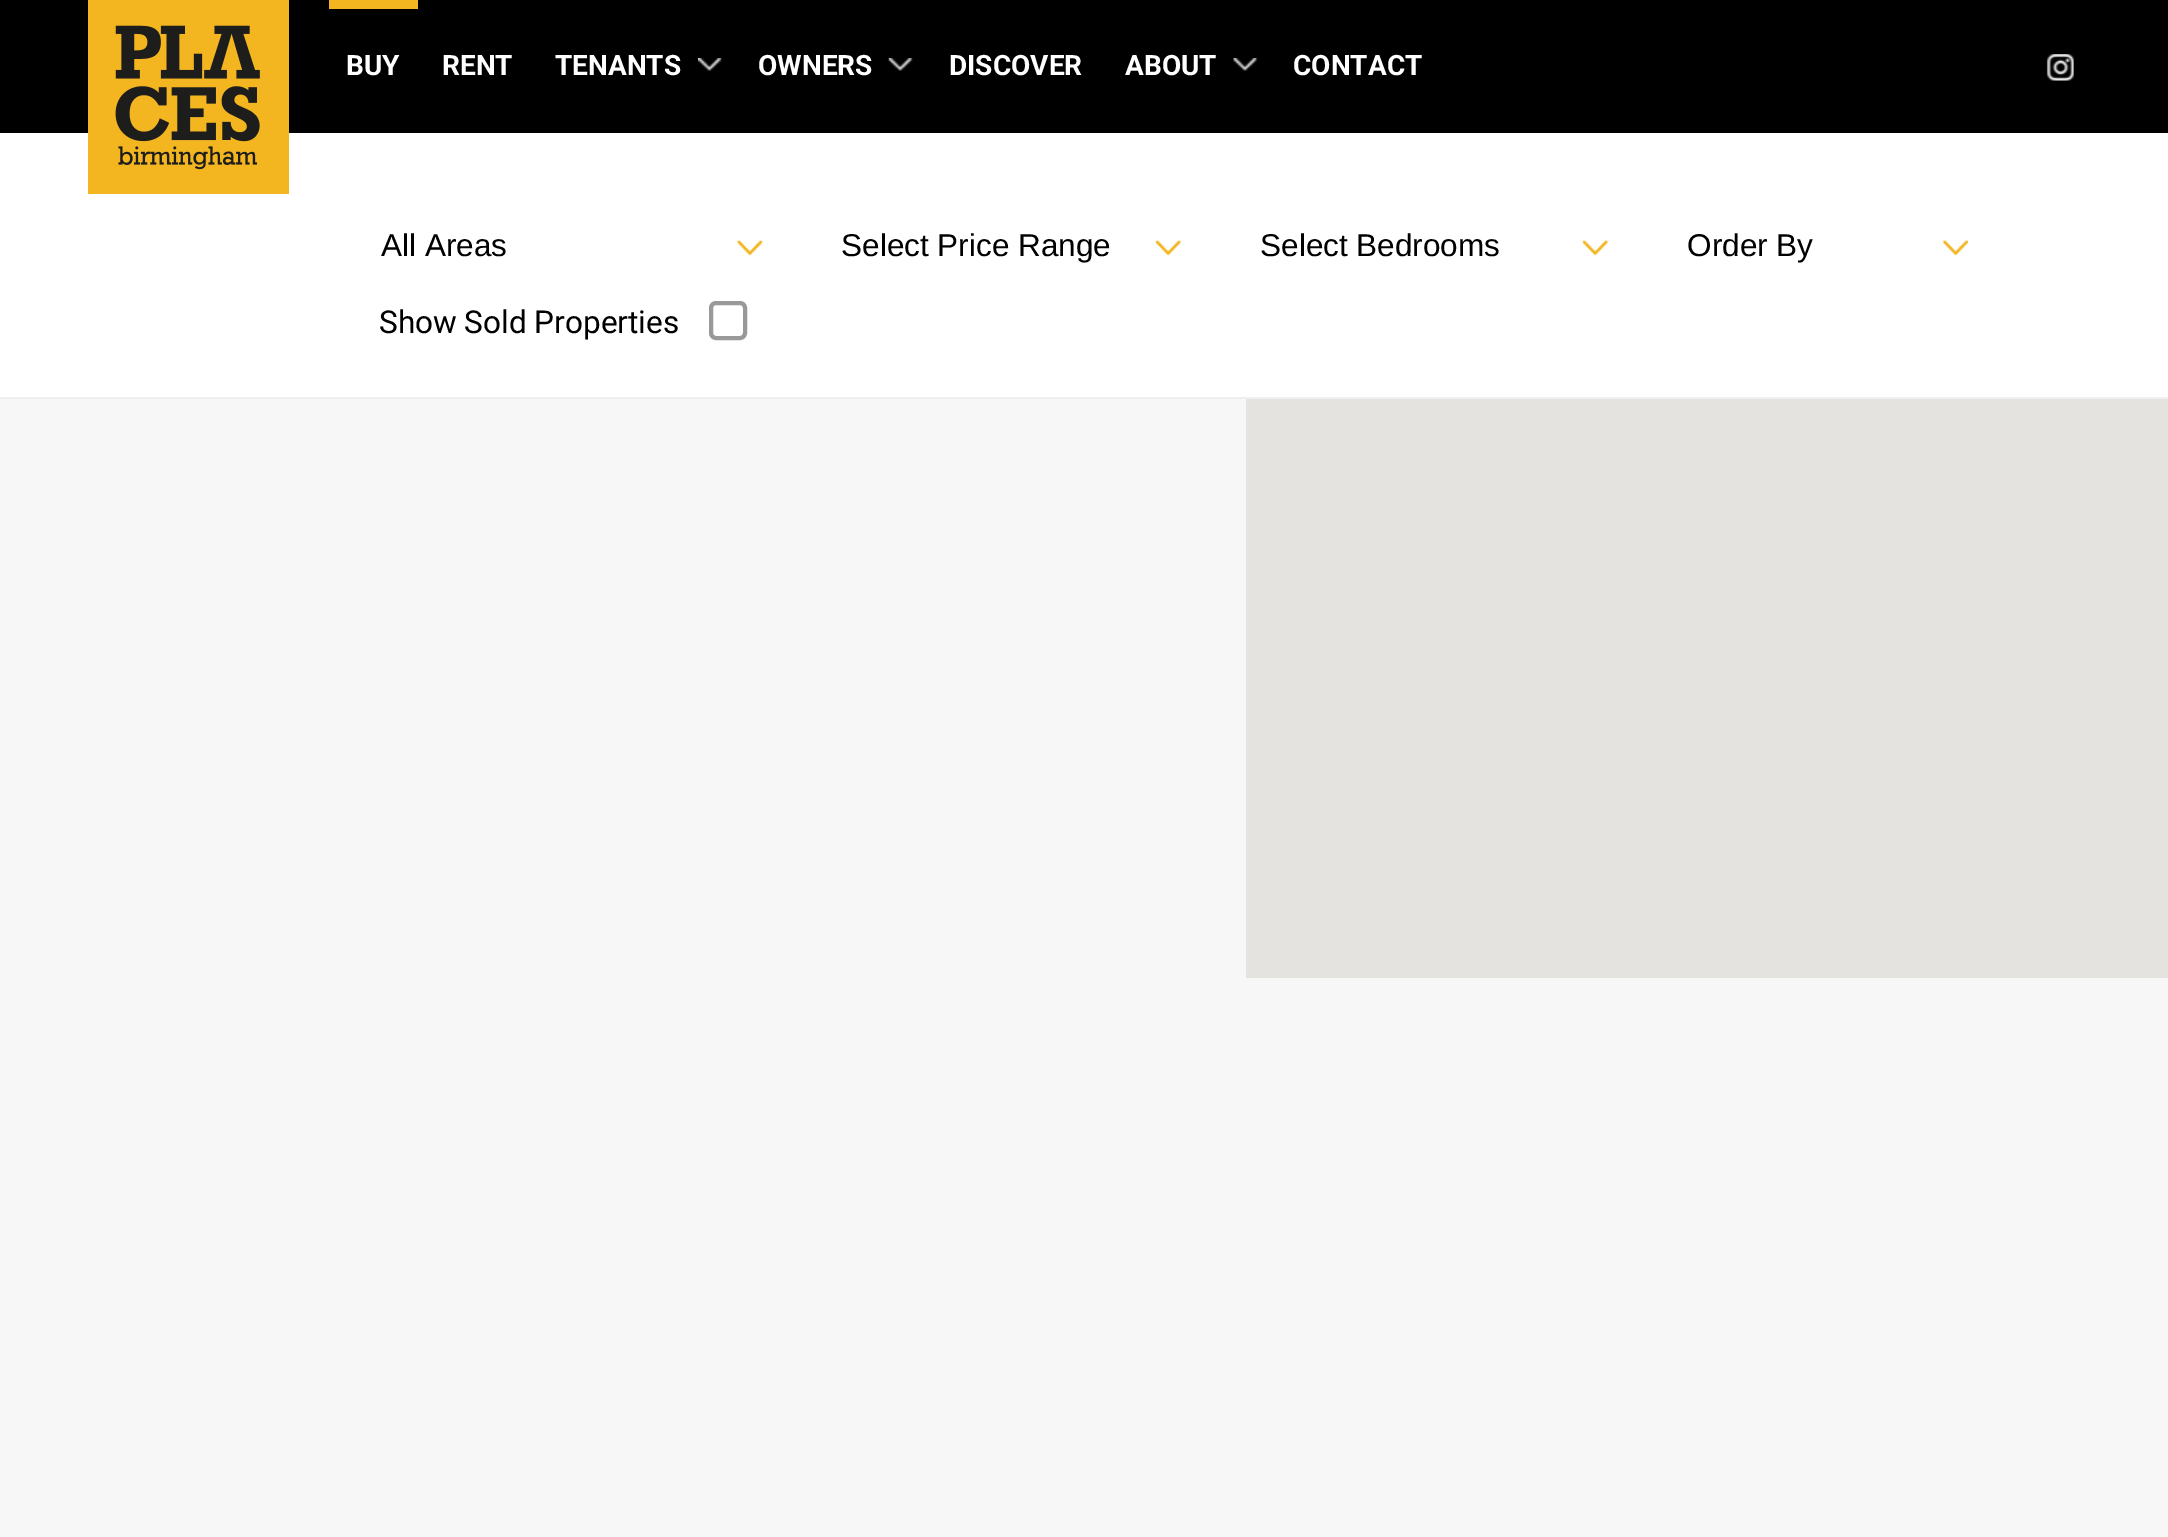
%!PS
<< /PageSize [2168 1537] >> setpagedevice
/rgb { 3 { 255 div 3 1 roll } repeat setrgbcolor } def
/font { [ exch dup neg 0 0 3 -1 roll 0 0 ] selectfont } def
/text { moveto show } def
/roundrect { 5 dict begin { /r /h /w /y /x } { exch def } forall
  x r add y moveto x w add y 2 copy h add r arct x w add y h add x 1 index r arct
  x y h add x y r arct x y 2 copy exch w add exch r arct closepath end } def
/picture { 5 dict begin { /h /w /y /x /name } { exch def } forall
  gsave x y translate w h scale
  w h 8 [w 0 0 h 0 0] name (r) file false 3 colorimage grestore end } def
0 1537 translate 1 -1 scale
4 setmiterlimit
247 247 247 rgb
0 0 2168 1537 rectfill
0 0 0 rgb
0 0 2168 133 rectfill
255 255 255 rgb
0 133 2168 264 rectfill
(img_01.rgb) 88 0 201 194 picture
243 181 32 rgb
329 0 89 9 rectfill
(img_02.rgb) 698 58 24 13 picture
(img_03.rgb) 888 58 25 13 picture
(img_04.rgb) 1233 58 25 13 picture
(img_05.rgb) 2046 54 28 27 picture
239 239 239 rgb
0 397 2168 2 rectfill
(img_06.rgb) 736 240 27 16 picture
(img_07.rgb) 1155 240 27 16 picture
(img_07.rgb) 1582 240 27 16 picture
(img_08.rgb) 1942 240 27 16 picture
153 153 153 rgb
4 setlinewidth
711 303 34 35 5 roundrect stroke
229 227 223 rgb
1246 399 922 579 rectfill
/Roboto-Bold 28 font
255 255 255 rgb
(BUY) 346 75 text
(RENT) 442 75 text
(TENANTS) 555 75 text
(OWNERS) 758 75 text
(DISCOVER) 949 75 text
(ABOUT) 1125 75 text
(CONTACT) 1293 75 text
/LiberationSans-Regular 31.5 font
0 0 0 rgb
(All Areas) 381 256 text
(Select Price Range) 841 256 text
(Select Bedrooms) 1260 256 text
(Order By) 1687 256 text
/Roboto-Regular 31.5 font
(Show Sold Properties) 379 333 text
showpage
